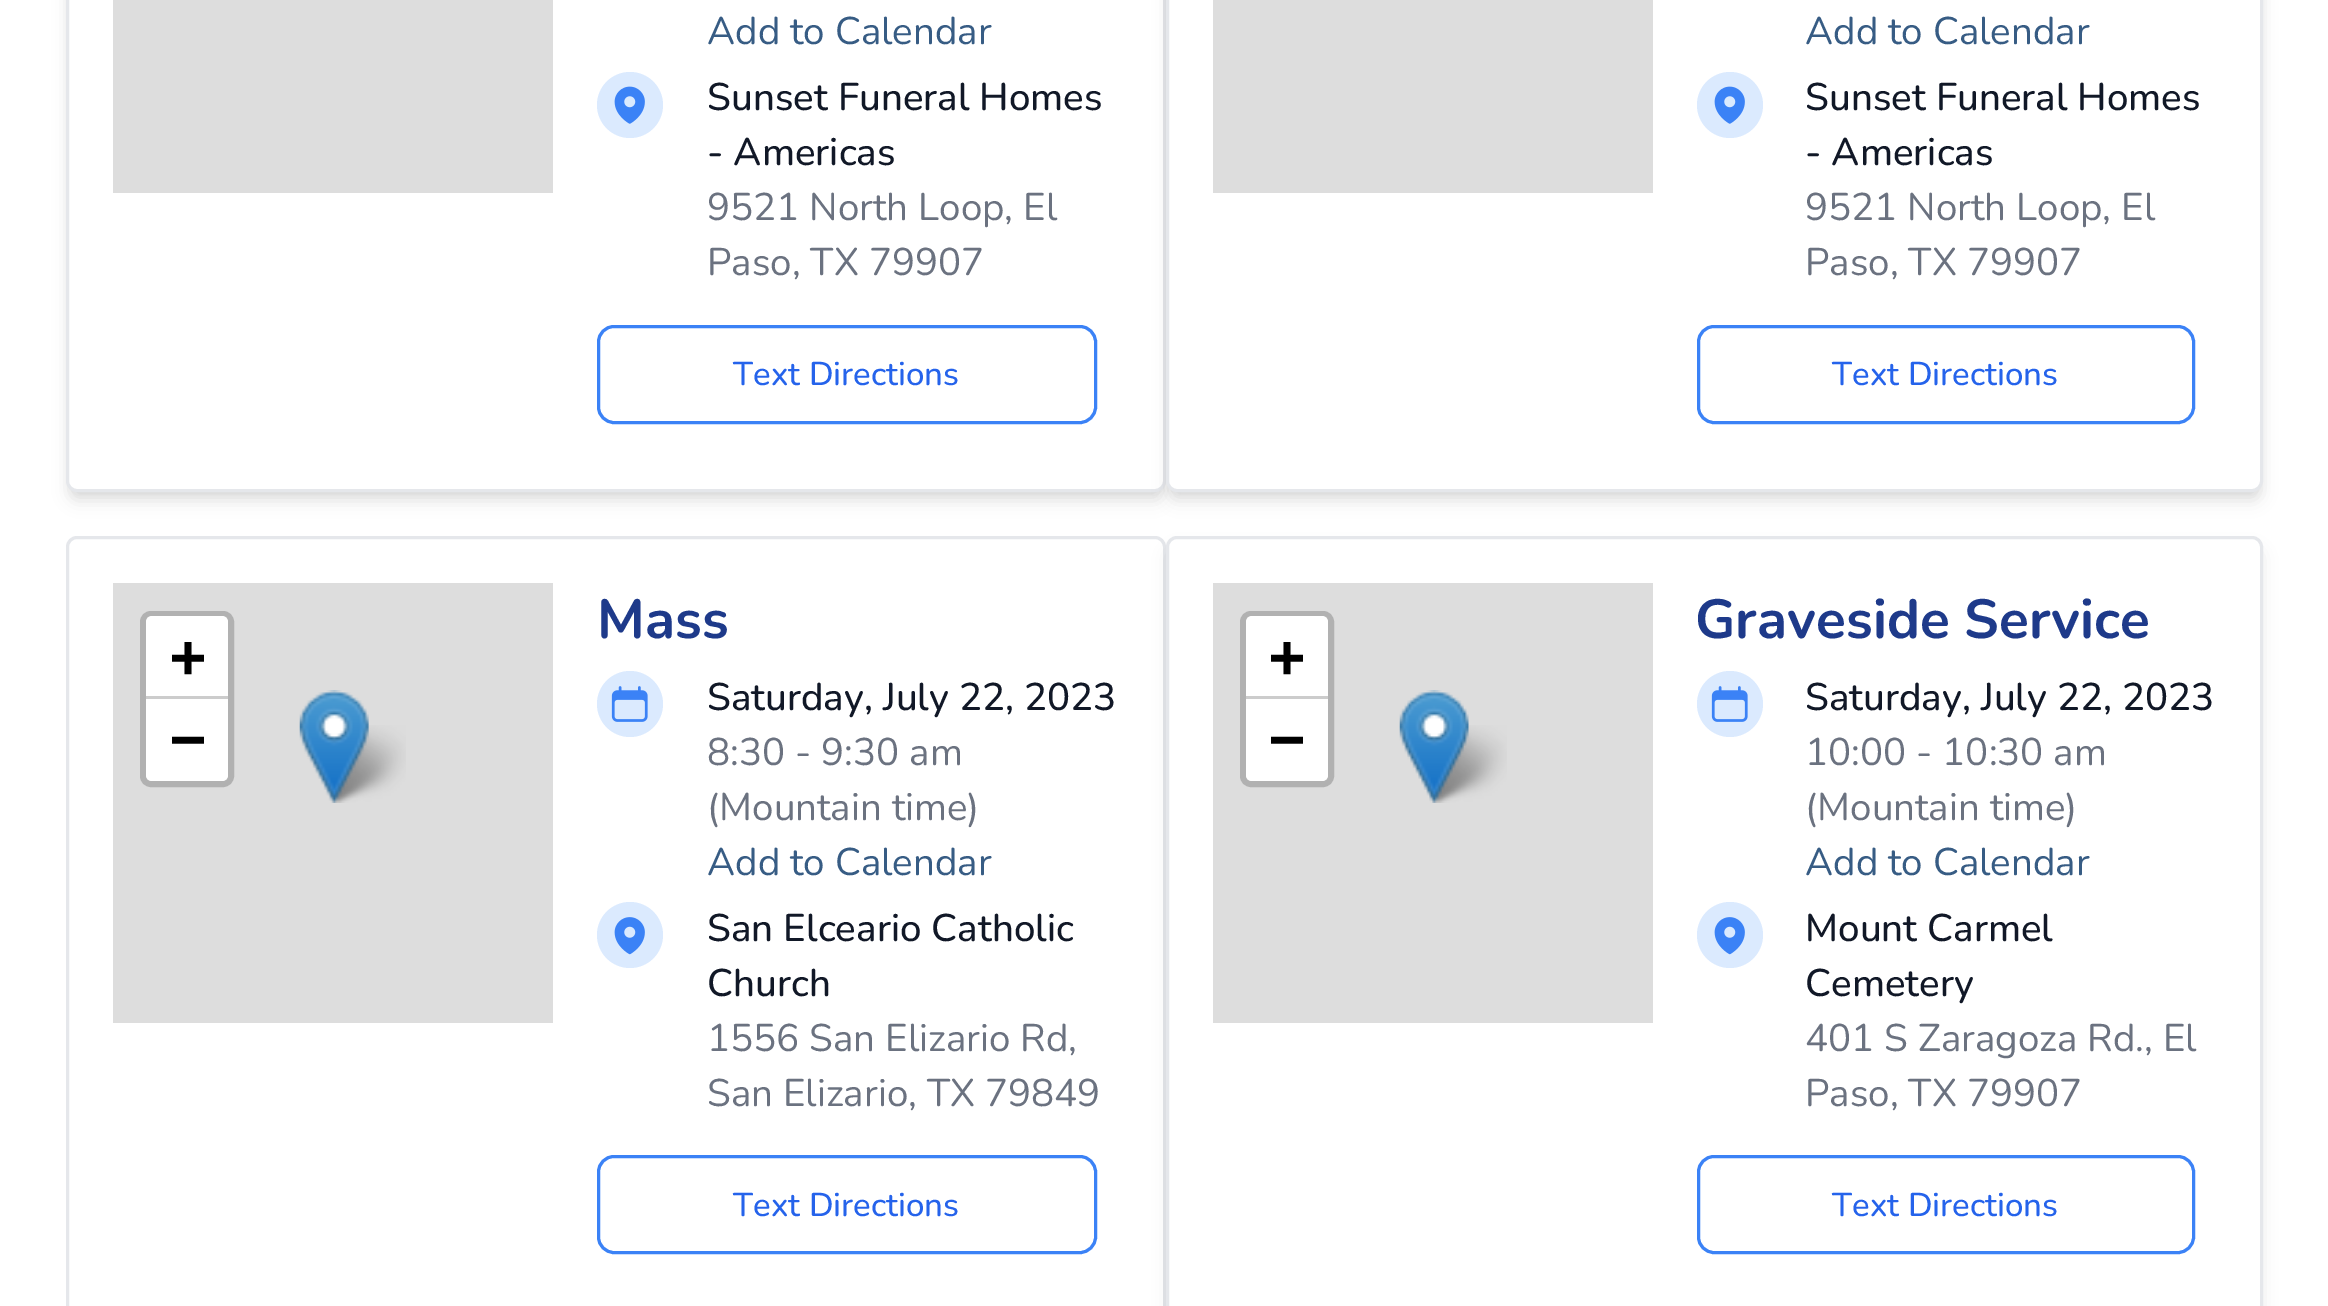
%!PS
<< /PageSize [2328 1306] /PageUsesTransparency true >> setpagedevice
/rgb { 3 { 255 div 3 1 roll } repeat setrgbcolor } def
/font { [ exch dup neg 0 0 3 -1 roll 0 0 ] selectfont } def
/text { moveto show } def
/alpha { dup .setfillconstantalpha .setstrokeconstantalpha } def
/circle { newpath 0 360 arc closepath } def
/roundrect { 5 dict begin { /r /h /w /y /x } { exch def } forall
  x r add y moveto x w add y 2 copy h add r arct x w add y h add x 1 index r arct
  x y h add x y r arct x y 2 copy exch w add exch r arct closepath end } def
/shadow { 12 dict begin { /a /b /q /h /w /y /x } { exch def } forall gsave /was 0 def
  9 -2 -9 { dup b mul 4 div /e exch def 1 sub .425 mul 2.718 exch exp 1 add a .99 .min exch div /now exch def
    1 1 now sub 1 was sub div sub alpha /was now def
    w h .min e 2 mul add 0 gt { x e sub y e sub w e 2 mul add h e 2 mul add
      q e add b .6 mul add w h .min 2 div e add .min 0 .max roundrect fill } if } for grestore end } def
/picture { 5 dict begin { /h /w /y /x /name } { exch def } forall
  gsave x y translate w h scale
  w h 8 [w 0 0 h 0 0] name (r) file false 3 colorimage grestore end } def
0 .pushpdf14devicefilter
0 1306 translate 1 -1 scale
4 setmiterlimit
255 255 255 rgb
0 0 2328 1306 rectfill
0 0 0 rgb
72 -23 1089 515 6 5.5 0.1 shadow
69 -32 1094 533 8 8 0.1 shadow
255 255 255 rgb
67.5 -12.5 1097 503 9.5 roundrect gsave fill grestore
229 231 235 rgb
3 setlinewidth
stroke
221 221 221 rgb
113 0 440 193 rectfill
219 234 254 rgb
630 105 33 circle fill
(img_01.rgb) 614 86 31 38 picture
59 130 246 rgb
598.5 326.5 497 96 15.5 roundrect stroke
0 0 0 rgb
1172 -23 1086 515 6 5.5 0.1 shadow
1169 -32 1092 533 8 8 0.1 shadow
255 255 255 rgb
1167.5 -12.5 1094 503 9.5 roundrect gsave fill grestore
229 231 235 rgb
stroke
221 221 221 rgb
1213 0 440 193 rectfill
219 234 254 rgb
1730 105 33 circle fill
(img_01.rgb) 1714 86 31 38 picture
59 130 246 rgb
1698.5 326.5 495 96 15.5 roundrect stroke
229 231 235 rgb
67.5 537.5 1097 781 9.5 roundrect stroke
221 221 221 rgb
113 583 440 440 rectfill
177 177 177 rgb
6 setlinewidth
143 614 88 170 8 roundrect stroke
255 255 255 rgb
152 616 moveto 70 0 rlineto 3.5 0 6 2.5 6 6 rcurveto 0 74 rlineto -82 0 rlineto 0 -74 rlineto 0 -3.5 2.5 -6 6 -6 rcurveto closepath fill
204 204 204 rgb
146 696 82 3 rectfill
255 255 255 rgb
146 699 moveto 82 0 rlineto 0 76 rlineto 0 3.5 -2.5 6 -6 6 rcurveto -70 0 rlineto -3.5 0 -6 -2.5 -6 -6 rcurveto closepath fill
(img_03.rgb) 324 725 82 78 picture
(img_02.rgb) 299 690 70 113 picture
219 234 254 rgb
630 704 33 circle fill
(img_04.rgb) 611 686 37 36 picture
630 935 33 circle fill
(img_05.rgb) 614 917 31 38 picture
59 130 246 rgb
3 setlinewidth
598.5 1156.5 497 96 15.5 roundrect stroke
0 0 0 rgb
1169 550 1092 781 8 8 0.1 shadow
255 255 255 rgb
1167.5 537.5 1094 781 9.5 roundrect gsave fill grestore
229 231 235 rgb
stroke
221 221 221 rgb
1213 583 440 440 rectfill
177 177 177 rgb
6 setlinewidth
1243 614 88 170 8 roundrect stroke
255 255 255 rgb
1252 616 moveto 70 0 rlineto 3.5 0 6 2.5 6 6 rcurveto 0 74 rlineto -82 0 rlineto 0 -74 rlineto 0 -3.5 2.5 -6 6 -6 rcurveto closepath fill
204 204 204 rgb
1246 696 82 3 rectfill
255 255 255 rgb
1246 699 moveto 82 0 rlineto 0 76 rlineto 0 3.5 -2.5 6 -6 6 rcurveto -70 0 rlineto -3.5 0 -6 -2.5 -6 -6 rcurveto closepath fill
(img_07.rgb) 1424 725 83 78 picture
(img_06.rgb) 1399 690 70 113 picture
219 234 254 rgb
1730 704 33 circle fill
(img_04.rgb) 1711 686 37 36 picture
1730 935 33 circle fill
(img_05.rgb) 1714 917 31 38 picture
59 130 246 rgb
3 setlinewidth
1698.5 1156.5 495 96 15.5 roundrect stroke
/Nunito-Regular 38.5 font
55 92 132 rgb
(Add to Calendar) 707 44 text
/Nunito-Medium 38.5 font
17 24 39 rgb
(Sunset Funeral Homes) 707 110 text
(- Americas) 707 165 text
/Nunito-Regular 38.5 font
107 114 128 rgb
(9521 North Loop, El) 707 220 text
(Paso, TX 79907) 707 275 text
/Nunito-Medium 33 font
37 99 235 rgb
(Text Directions) 733 385 text
/Nunito-Regular 38.5 font
55 92 132 rgb
(Add to Calendar) 1805 44 text
/Nunito-Medium 38.5 font
17 24 39 rgb
(Sunset Funeral Homes) 1805 110 text
(- Americas) 1805 165 text
/Nunito-Regular 38.5 font
107 114 128 rgb
(9521 North Loop, El) 1805 220 text
(Paso, TX 79907) 1805 275 text
/Nunito-Medium 33 font
37 99 235 rgb
(Text Directions) 1832 385 text
/DejaVuSansMono-Bold 60 font
0 0 0 rgb
(+) 170 677 text
(−) 170 759 text
/Nunito-Bold 55 font
30 58 138 rgb
(Mass) 597 638 text
/Nunito-Medium 38.5 font
17 24 39 rgb
(Saturday, July 22, 2023) 707 710 text
/Nunito-Regular 38.5 font
107 114 128 rgb
(8:30 - 9:30 am) 707 765 text
(\(Mountain time\)) 707 820 text
55 92 132 rgb
(Add to Calendar) 707 875 text
/Nunito-Medium 38.5 font
17 24 39 rgb
(San Elceario Catholic) 707 941 text
(Church) 707 996 text
/Nunito-Regular 38.5 font
107 114 128 rgb
(1556 San Elizario Rd,) 707 1051 text
(San Elizario, TX 79849) 707 1106 text
/Nunito-Medium 33 font
37 99 235 rgb
(Text Directions) 733 1216 text
/DejaVuSansMono-Bold 60 font
0 0 0 rgb
(+) 1269 677 text
(−) 1269 759 text
/Nunito-Bold 55 font
30 58 138 rgb
(Graveside Service) 1695 638 text
/Nunito-Medium 38.5 font
17 24 39 rgb
(Saturday, July 22, 2023) 1805 710 text
/Nunito-Regular 38.5 font
107 114 128 rgb
(10:00 - 10:30 am) 1805 765 text
(\(Mountain time\)) 1805 820 text
55 92 132 rgb
(Add to Calendar) 1805 875 text
/Nunito-Medium 38.5 font
17 24 39 rgb
(Mount Carmel) 1805 941 text
(Cemetery) 1805 996 text
/Nunito-Regular 38.5 font
107 114 128 rgb
(401 S Zaragoza Rd., El) 1805 1051 text
(Paso, TX 79907) 1805 1106 text
/Nunito-Medium 33 font
37 99 235 rgb
(Text Directions) 1832 1216 text
.poppdf14devicefilter showpage
